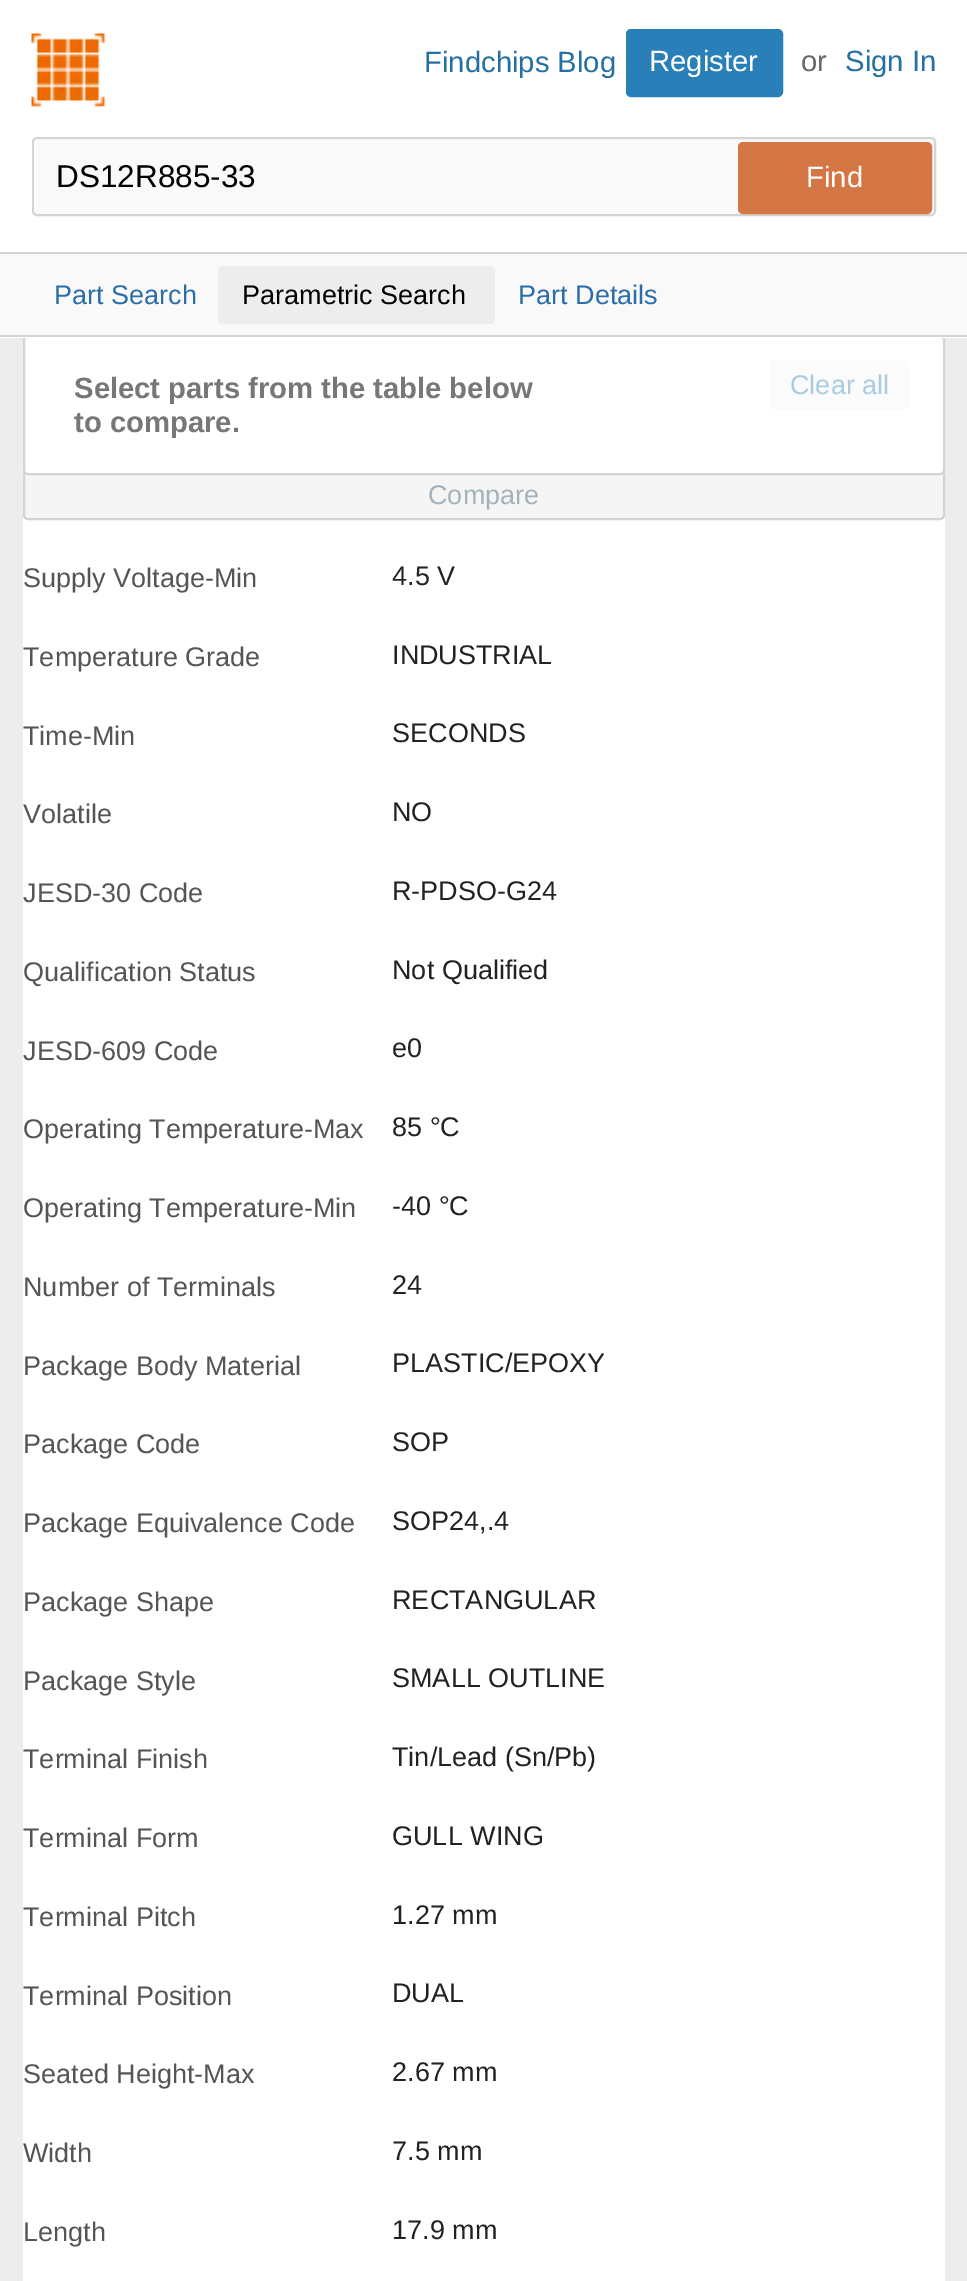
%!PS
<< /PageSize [967 2281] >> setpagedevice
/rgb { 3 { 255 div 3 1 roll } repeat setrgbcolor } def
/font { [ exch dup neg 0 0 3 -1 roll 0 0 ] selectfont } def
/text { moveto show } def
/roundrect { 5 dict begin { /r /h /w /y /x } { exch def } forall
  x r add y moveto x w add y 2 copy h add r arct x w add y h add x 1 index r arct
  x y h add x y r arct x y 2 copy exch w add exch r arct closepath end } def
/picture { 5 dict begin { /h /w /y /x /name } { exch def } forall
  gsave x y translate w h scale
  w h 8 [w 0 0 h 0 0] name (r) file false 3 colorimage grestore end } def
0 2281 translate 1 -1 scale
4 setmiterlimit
237 237 237 rgb
0 0 967 2281 rectfill
255 255 255 rgb
23 338 922 1943 rectfill
245 245 245 rgb
24 471 920 48 4 roundrect gsave fill grestore
212 212 212 rgb
2 setlinewidth
stroke
255 255 255 rgb
24 336 920 138 4 roundrect gsave fill grestore
212 212 212 rgb
stroke
255 255 255 rgb
0 0 967 338 rectfill
212 212 212 rgb
0 335 967 2 rectfill
(img_01.rgb) 31 33 76 74 picture
41 128 185 rgb
627 30 155 66 4 roundrect gsave fill grestore
stroke
212 212 212 rgb
33 138 902 77 4 roundrect stroke
249 249 249 rgb
34 140 900 74 5 roundrect fill
213 119 68 rgb
739 143 192 70 4 roundrect gsave fill grestore
stroke
249 249 249 rgb
0 254 967 81 rectfill
212 212 212 rgb
0 252 967 2 rectfill
237 237 237 rgb
218 266 277 58 5 roundrect fill
251 251 251 rgb
770 360 139 50 5 roundrect fill
/LiberationSans-Regular 29.25 font
36 112 163 rgb
(Findchips Blog) 424 72 text
255 255 255 rgb
(Register) 649 71 text
105 105 105 rgb
(or) 801 71 text
36 112 163 rgb
(Sign In) 845 71 text
/LiberationSans-Regular 31.5 font
0 0 0 rgb
(DS12R885-33) 56 187 text
/LiberationSans-Regular 29.25 font
255 255 255 rgb
(Find) 806 187 text
/LiberationSans-Regular 27 font
44 109 169 rgb
(Part Search) 54 304 text
0 0 0 rgb
(Parametric Search) 242 304 text
44 109 169 rgb
(Part Details) 518 304 text
/LiberationSans-Bold 29.25 font
119 119 119 rgb
(Select parts from the table below) 74 398 text
(to compare.) 74 432 text
/LiberationSans-Regular 27 font
169 204 227 rgb
(Clear all) 790 394 text
163 179 190 rgb
(Compare) 428 504 text
85 85 85 rgb
(Supply Voltage-Min) 23 587 text
34 34 34 rgb
(4.5 V) 392 585 text
85 85 85 rgb
(Temperature Grade) 23 666 text
34 34 34 rgb
(INDUSTRIAL) 392 664 text
85 85 85 rgb
(Time-Min) 23 745 text
34 34 34 rgb
(SECONDS) 392 742 text
85 85 85 rgb
(Volatile) 23 823 text
34 34 34 rgb
(NO) 392 821 text
85 85 85 rgb
(JESD-30 Code) 23 902 text
34 34 34 rgb
(R-PDSO-G24) 392 900 text
85 85 85 rgb
(Qualification Status) 23 981 text
34 34 34 rgb
(Not Qualified) 392 979 text
85 85 85 rgb
(JESD-609 Code) 23 1060 text
34 34 34 rgb
(e0) 392 1057 text
85 85 85 rgb
(Operating Temperature-Max) 23 1138 text
34 34 34 rgb
(85 °C) 392 1136 text
85 85 85 rgb
(Operating Temperature-Min) 23 1217 text
34 34 34 rgb
(-40 °C) 392 1215 text
85 85 85 rgb
(Number of Terminals) 23 1296 text
34 34 34 rgb
(24) 392 1294 text
85 85 85 rgb
(Package Body Material) 23 1375 text
34 34 34 rgb
(PLASTIC/EPOXY) 392 1372 text
85 85 85 rgb
(Package Code) 23 1453 text
34 34 34 rgb
(SOP) 392 1451 text
85 85 85 rgb
(Package Equivalence Code) 23 1532 text
34 34 34 rgb
(SOP24,.4) 392 1530 text
85 85 85 rgb
(Package Shape) 23 1611 text
34 34 34 rgb
(RECTANGULAR) 392 1609 text
85 85 85 rgb
(Package Style) 23 1690 text
34 34 34 rgb
(SMALL OUTLINE) 392 1687 text
85 85 85 rgb
(Terminal Finish) 23 1768 text
34 34 34 rgb
(Tin/Lead \(Sn/Pb\)) 392 1766 text
85 85 85 rgb
(Terminal Form) 23 1847 text
34 34 34 rgb
(GULL WING) 392 1845 text
85 85 85 rgb
(Terminal Pitch) 23 1926 text
34 34 34 rgb
(1.27 mm) 392 1924 text
85 85 85 rgb
(Terminal Position) 23 2005 text
34 34 34 rgb
(DUAL) 392 2002 text
85 85 85 rgb
(Seated Height-Max) 23 2083 text
34 34 34 rgb
(2.67 mm) 392 2081 text
85 85 85 rgb
(Width) 23 2162 text
34 34 34 rgb
(7.5 mm) 392 2160 text
85 85 85 rgb
(Length) 23 2241 text
34 34 34 rgb
(17.9 mm) 392 2239 text
showpage
